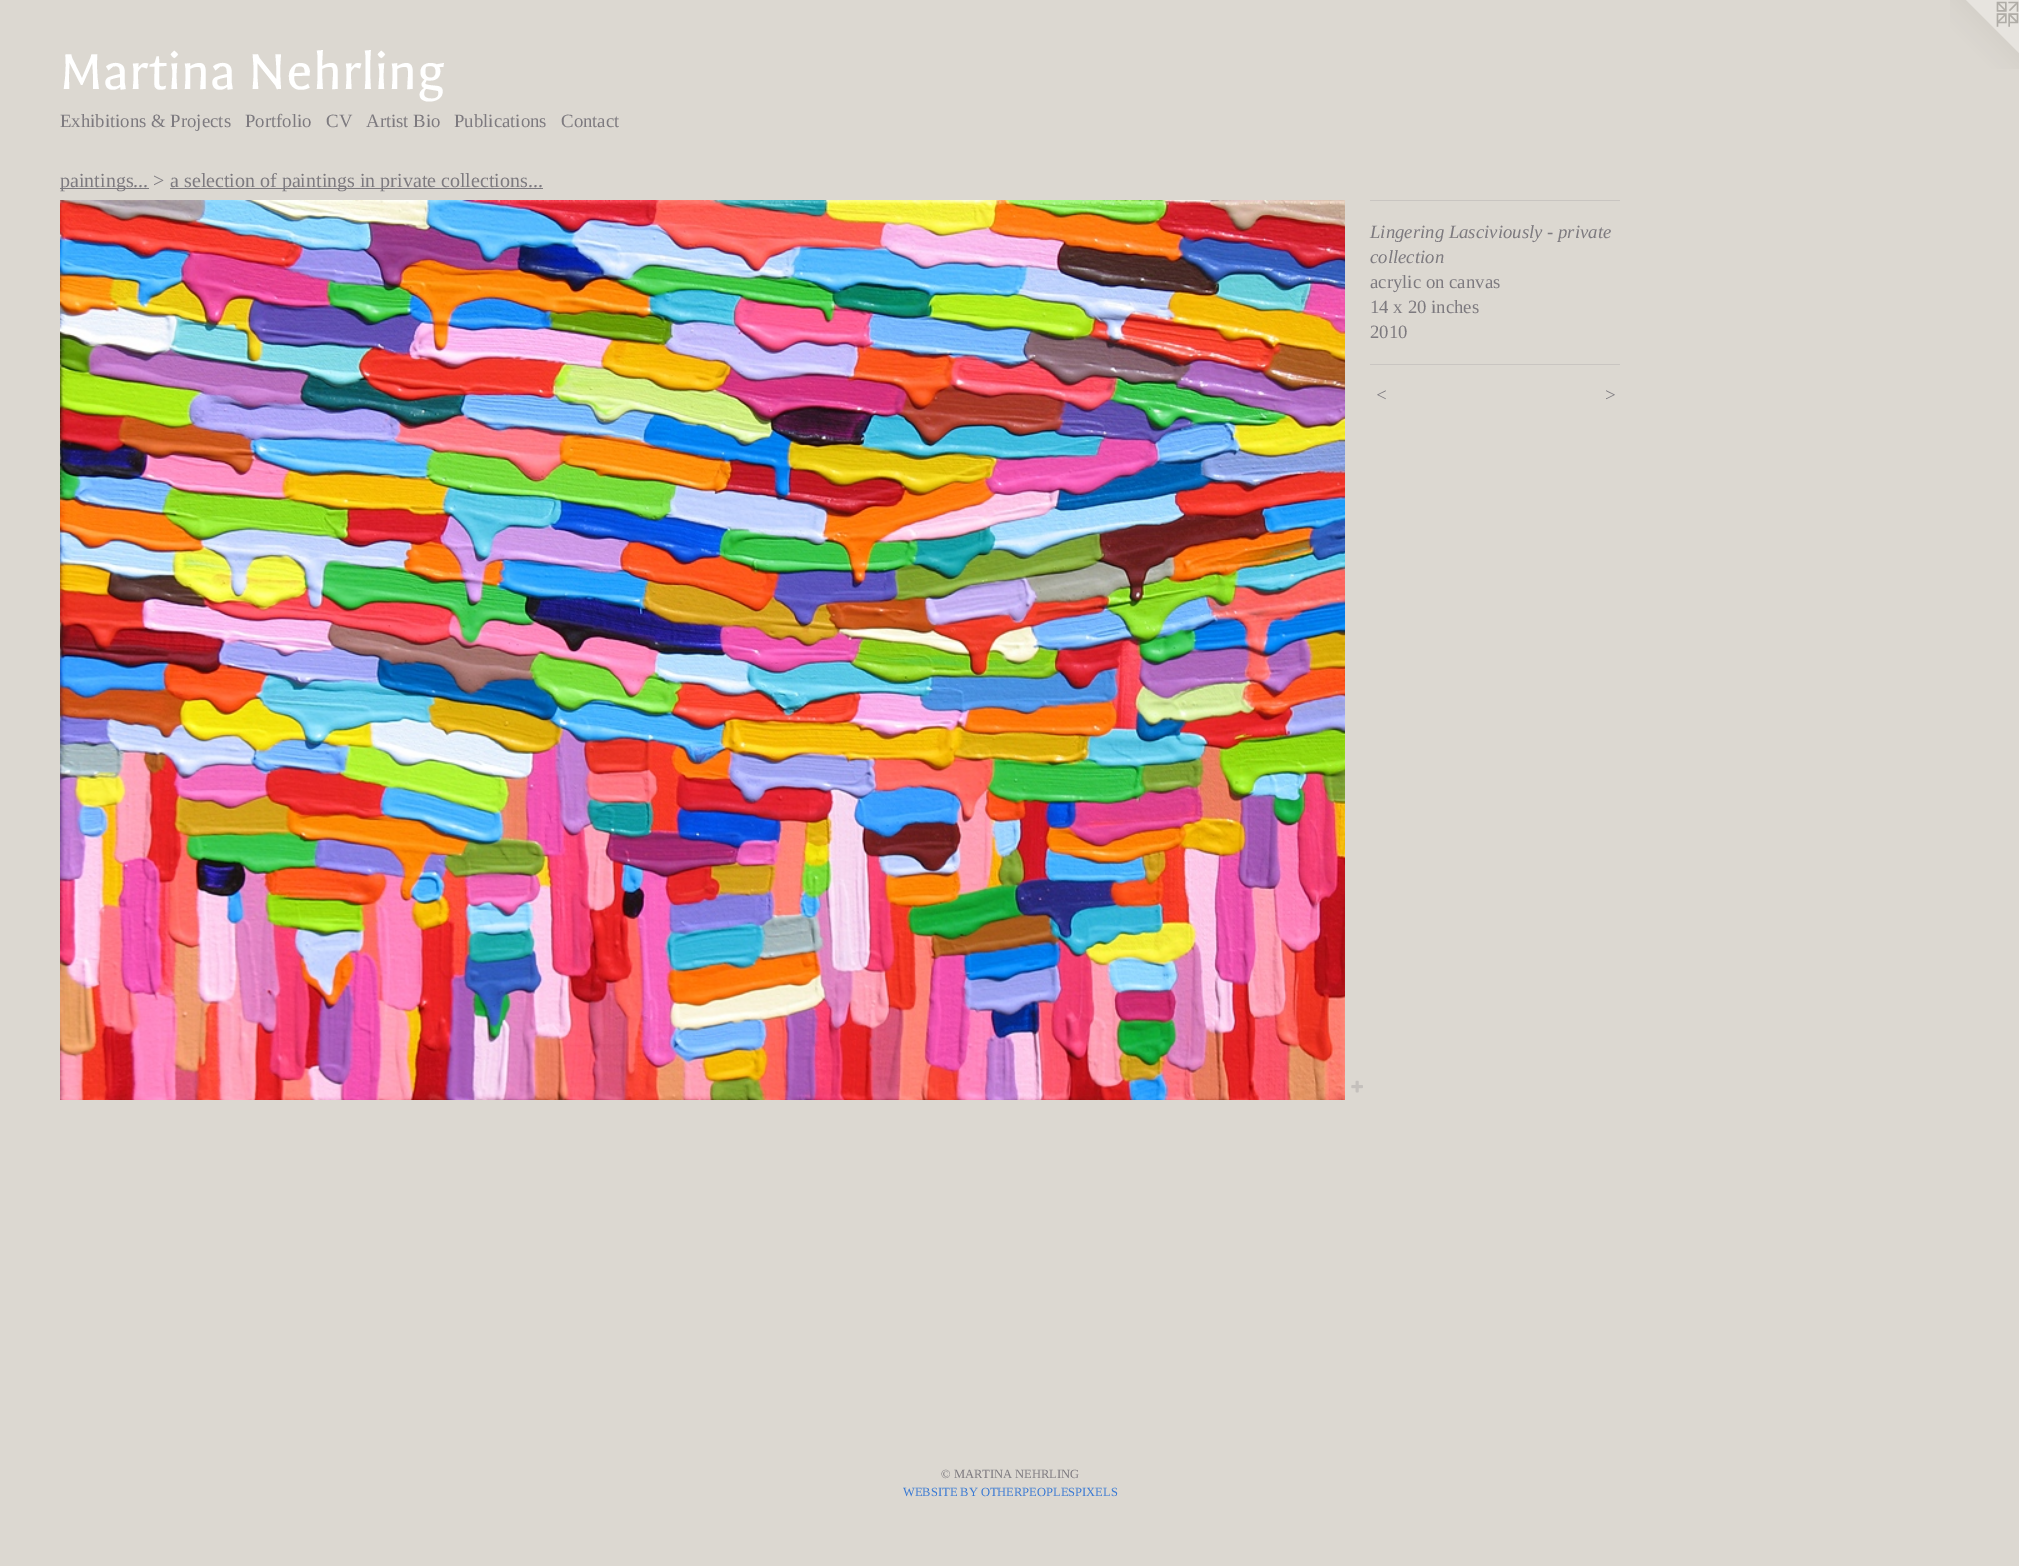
%!PS
<< /PageSize [2019 1566] >> setpagedevice
/rgb { 3 { 255 div 3 1 roll } repeat setrgbcolor } def
/font { [ exch dup neg 0 0 3 -1 roll 0 0 ] selectfont } def
/text { moveto show } def
/picture { 5 dict begin { /h /w /y /x /name } { exch def } forall
  gsave x y translate w h scale
  w h 8 [w 0 0 h 0 0] name (r) file false 3 colorimage grestore end } def
0 1566 translate 1 -1 scale
4 setmiterlimit
220 216 209 rgb
0 0 2019 1566 rectfill
(img_01.rgb) 1950 0 69 69 picture
125 122 127 rgb
60 188 89 1 rectfill
170 188 373 1 rectfill
(img_02.rgb) 60 200 1285 900 picture
(img_03.rgb) 1351 1080 12 13 picture
201 197 193 rgb
1370 200 250 1 rectfill
1370 364 250 1 rectfill
/Galdeano-Regular 57.5 font
255 255 255 rgb
(Martina Nehrling) 60 89 text
/LiberationSerif-Regular 18.75 font
125 122 127 rgb
(Exhibitions & Projects) 60 127 text
(Portfolio) 245 127 text
(CV) 326 127 text
(Artist Bio) 366 127 text
(Publications) 454 127 text
(Contact) 561 127 text
/LiberationSerif-Regular 20 font
(paintings... >) 60 187 text
(a selection of paintings in private collections...) 170 187 text
/LiberationSerif-Italic 18.75 font
(Lingering Lasciviously - private) 1370 238 text
(collection) 1370 263 text
/LiberationSerif-Regular 18.75 font
(acrylic on canvas) 1370 288 text
(14 x 20 inches) 1370 313 text
(2010) 1370 338 text
/LiberationSerif-Italic 18.75 font
1375 401 moveto 1 0 (<) ashow
1604 401 moveto 1 0 (>) ashow
/LiberationSerif-Regular 12.5 font
(© MARTINA NEHRLING) 941 1478 text
58 122 212 rgb
(WEBSITE BY OTHERPEOPLESPIXELS) 903 1496 text
showpage
